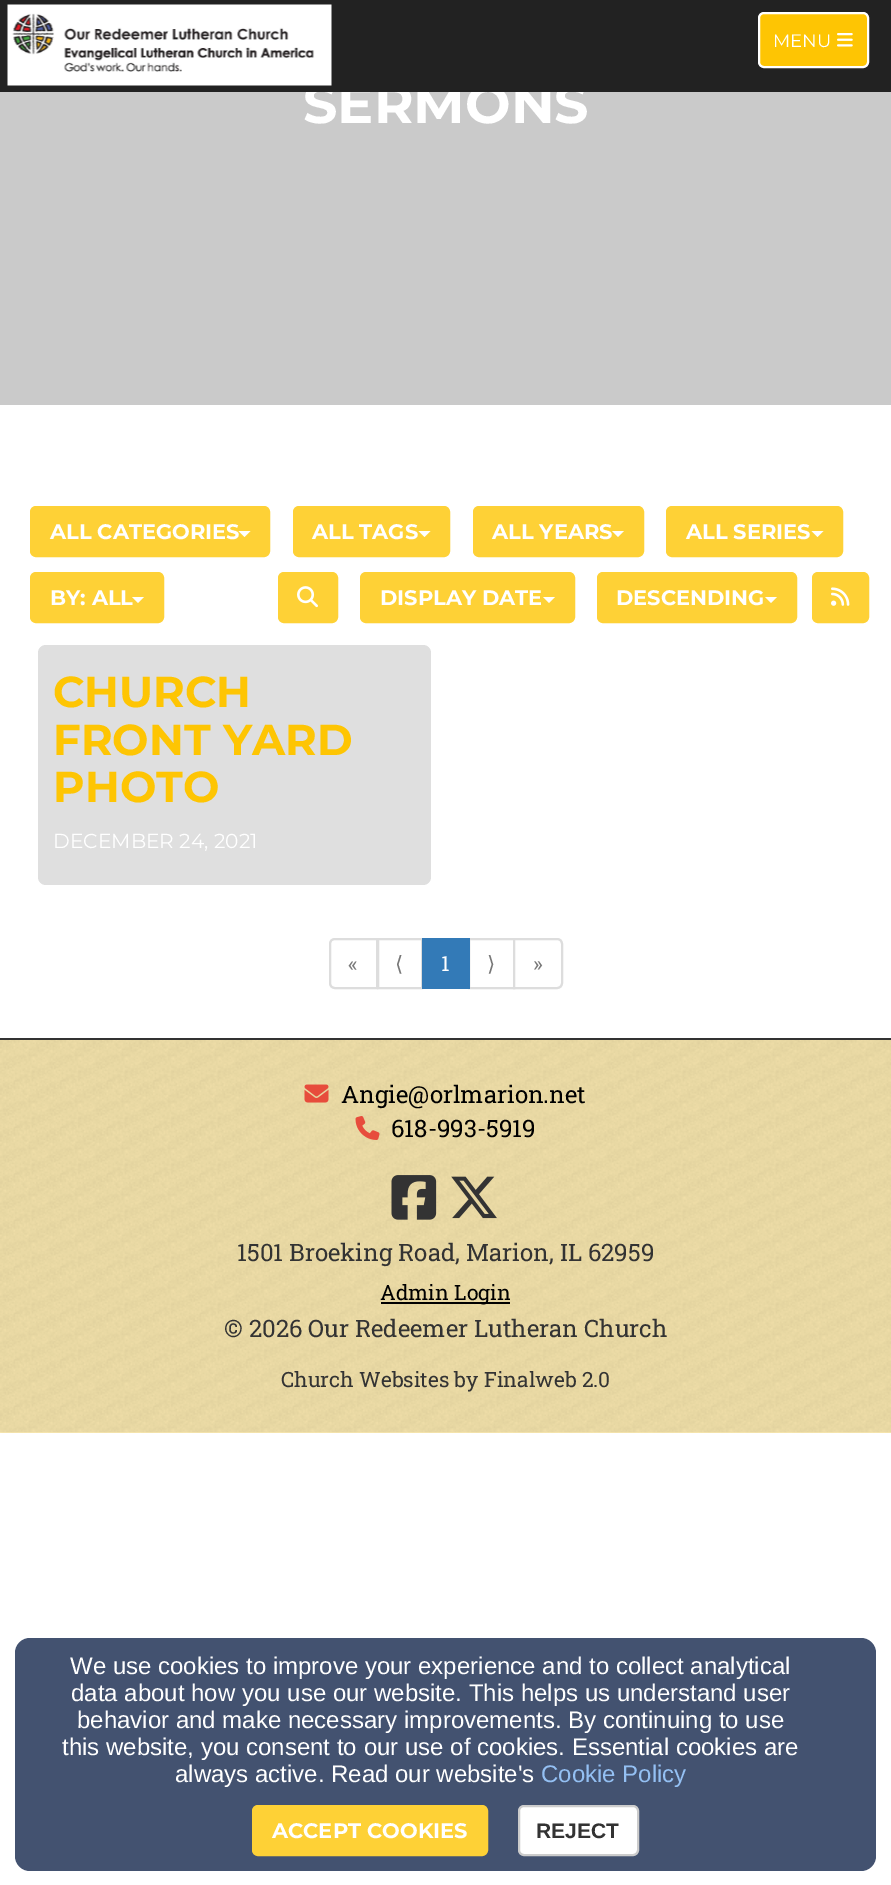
%!PS
<< /PageSize [891 1885] >> setpagedevice
/rgb { 3 { 255 div 3 1 roll } repeat setrgbcolor } def
/font { [ exch dup neg 0 0 3 -1 roll 0 0 ] selectfont } def
/text { moveto show } def
/roundrect { 5 dict begin { /r /h /w /y /x } { exch def } forall
  x r add y moveto x w add y 2 copy h add r arct x w add y h add x 1 index r arct
  x y h add x y r arct x y 2 copy exch w add exch r arct closepath end } def
/picture { 5 dict begin { /h /w /y /x /name } { exch def } forall
  gsave x y translate w h scale
  w h 8 [w 0 0 h 0 0] name (r) file false 3 colorimage grestore end } def
0 1885 translate 1 -1 scale
4 setmiterlimit
255 255 255 rgb
0 0 891 1885 rectfill
202 202 202 rgb
0 92 891 313 rectfill
254 209 54 rgb
31 507 238 49 5 roundrect gsave fill grestore
2 setlinewidth
stroke
255 255 255 rgb
238.5 531 moveto 12 0 rlineto -6 6 rlineto closepath fill
254 209 54 rgb
294 507 155 49 5 roundrect gsave fill grestore
stroke
255 255 255 rgb
418.5 531 moveto 12 0 rlineto -6 6 rlineto closepath fill
254 209 54 rgb
474 507 169 49 5 roundrect gsave fill grestore
stroke
255 255 255 rgb
612 531 moveto 12 0 rlineto -6 6 rlineto closepath fill
254 209 54 rgb
667 507 175 49 5 roundrect gsave fill grestore
stroke
255 255 255 rgb
811.5 531 moveto 12 0 rlineto -6 6 rlineto closepath fill
254 209 54 rgb
31 573 132 49 5 roundrect gsave fill grestore
stroke
255 255 255 rgb
132 597 moveto 12 0 rlineto -6 6 rlineto closepath fill
254 209 54 rgb
279 573 58 49 5 roundrect gsave fill grestore
stroke
(img_03.rgb) 297 586 21 22 picture
361 573 213 49 5 roundrect gsave fill grestore
stroke
255 255 255 rgb
543 597 moveto 12 0 rlineto -6 6 rlineto closepath fill
254 209 54 rgb
598 573 198 49 5 roundrect gsave fill grestore
stroke
255 255 255 rgb
765 597 moveto 12 0 rlineto -6 6 rlineto closepath fill
254 209 54 rgb
813 573 55 49 5 roundrect gsave fill grestore
stroke
(img_04.rgb) 831 587 19 19 picture
223 223 223 rgb
38 645 393 240 8 roundrect fill
221 221 221 rgb
335 939 moveto 42 0 rlineto 0 49 rlineto -42 0 rlineto -3 0 -5 -2 -5 -5 rcurveto 0 -39 rlineto 0 -3 2 -5 5 -5 rcurveto closepath stroke
378 939 44 49 rectstroke
469 939 45 49 rectstroke
51 122 183 rgb
422 938 48 51 rectfill
255 255 255 rgb
514 939 moveto 43 0 rlineto 3 0 5 2 5 5 rcurveto 0 39 rlineto 0 3 -2 5 -5 5 rcurveto -43 0 rlineto closepath gsave fill grestore
221 221 221 rgb
stroke
255 237 179 rgb
0 1040 891 393 rectfill
(img_05.rgb) 0 1040 891 393 picture
51 51 51 rgb
0 1038 891 2 rectfill
(img_06.rgb) 304 1084 25 19 picture
(img_07.rgb) 355 1116 25 24 picture
(img_08.rgb) 391 1175 46 45 picture
(img_09.rgb) 451 1176 46 43 picture
0 0 0 rgb
381 1302 129 2 rectfill
67 82 112 rgb
15 1638 861 233 15 roundrect fill
254 209 54 rgb
253 1806 234 49 5 roundrect gsave fill grestore
stroke
255 255 255 rgb
519 1806 119 49 5 roundrect gsave fill grestore
204 204 204 rgb
stroke
/Montserrat-Bold 54 font
255 255 255 rgb
(SERMONS) 303 123 text
34 34 34 rgb
0 0 891 92 rectfill
(img_01.rgb) 7 4 325 82 picture
254 197 3 rgb
759 13 109 54 5 roundrect gsave fill grestore
255 255 255 rgb
stroke
(img_02.rgb) 837 33 16 14 picture
/Montserrat-Regular 18 font
(MENU) 773 47 text
/Montserrat-Bold 21 font
(ALL CATEGORIES) 50 539 text
(ALL TAGS) 312 539 text
(ALL YEARS) 492 539 text
(ALL SERIES) 686 539 text
(BY: ALL) 50 605 text
(DISPLAY DATE) 380 605 text
(DESCENDING) 616 605 text
/Montserrat-Bold 43.25 font
254 197 3 rgb
(CHURCH) 53 707 text
(FRONT YARD) 53 755 text
(PHOTO) 53 802 text
/Montserrat-Regular 20.25 font
255 255 255 rgb
(DECEMBER 24, 2021) 53 848 text
/RobotoSlab-Regular 21 font
119 119 119 rgb
(«) 348 971 text
/DejaVuSans-Regular 21 font
(⟨) 395 971 text
/RobotoSlab-Regular 21 font
255 255 255 rgb
(1) 441 971 text
/DejaVuSans-Regular 21 font
119 119 119 rgb
(⟩) 487 971 text
/RobotoSlab-Regular 21 font
(») 533 971 text
/RobotoSlab-Regular 24 font
0 0 0 rgb
(Angie@orlmarion.net) 341 1103 text
(618-993-5919) 391 1137 text
51 51 51 rgb
(1501 Broeking Road, Marion, IL 62959) 237 1261 text
/RobotoSlab-Regular 21 font
0 0 0 rgb
(Admin Login) 380 1300 text
/RobotoSlab-Regular 24 font
51 51 51 rgb
(© 2026 Our Redeemer Lutheran Church) 224 1337 text
/RobotoSlab-Regular 21 font
(Church Websites by Finalweb 2.0) 281 1387 text
/LiberationSans-Regular 24 font
255 255 255 rgb
(We use cookies to improve your experience and to collect analytical) 70 1674 text
(data about how you use our website. This helps us understand user) 71 1701 text
(behavior and make necessary improvements. By continuing to use) 77 1728 text
(this website, you consent to our use of cookies. Essential cookies are) 62 1755 text
(always active. Read our website's) 175 1782 text
148 192 243 rgb
(Cookie Policy) 541 1782 text
/Montserrat-Bold 21 font
255 255 255 rgb
(ACCEPT COOKIES) 272 1838 text
/LiberationSans-Bold 21 font
51 51 51 rgb
(REJECT) 536 1838 text
showpage
